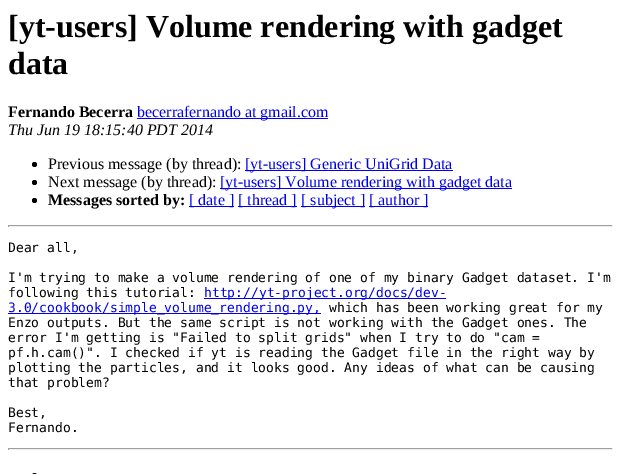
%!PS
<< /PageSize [621 474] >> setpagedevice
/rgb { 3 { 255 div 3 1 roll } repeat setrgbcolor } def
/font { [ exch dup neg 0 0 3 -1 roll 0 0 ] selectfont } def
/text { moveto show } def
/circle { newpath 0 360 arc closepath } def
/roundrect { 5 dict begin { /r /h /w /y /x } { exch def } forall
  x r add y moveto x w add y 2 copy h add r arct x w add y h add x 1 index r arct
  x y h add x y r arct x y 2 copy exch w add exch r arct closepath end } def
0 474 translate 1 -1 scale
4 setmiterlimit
255 255 255 rgb
0 0 621 474 rectfill
0 0 238 rgb
137 118 191 1 rectfill
0 0 0 rgb
34.5 164.5 2.5 circle fill
0 0 238 rgb
245 170 208 1 rectfill
0 0 0 rgb
34.5 182.5 2.5 circle fill
0 0 238 rgb
220 188 292 1 rectfill
0 0 0 rgb
34.5 200.5 2.5 circle fill
0 0 238 rgb
189 206 45 1 rectfill
238 206 59 1 rectfill
301 206 64 1 rectfill
369 206 59 1 rectfill
159 159 159 rgb
8 225 605 1 rectfill
238 238 238 rgb
612 225 1 2 rectfill
8 226 605 1 rectfill
159 159 159 rgb
8 225 1 2 rectfill
0 0 238 rgb
204 298 242 1 rectfill
8 313 313 1 rectfill
159 159 159 rgb
8 448 605 1 rectfill
238 238 238 rgb
612 448 1 2 rectfill
8 449 605 1 rectfill
159 159 159 rgb
8 448 1 2 rectfill
0 0 0 rgb
32 473 5 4 2.5 roundrect fill
/LiberationSerif-Bold 32 font
([yt-users] Volume rendering with gadget) 8 37 text
(data) 8 74 text
/LiberationSerif-Bold 16 font
(Fernando Becerra) 8 117 text
/LiberationSerif-Regular 16 font
0 0 238 rgb
(becerrafernando at gmail.com) 137 117 text
/LiberationSerif-Italic 16 font
0 0 0 rgb
(Thu Jun 19 18:15:40 PDT 2014) 8 135 text
/LiberationSerif-Regular 16 font
(Previous message \(by thread\):) 48 169 text
0 0 238 rgb
([yt-users] Generic UniGrid Data) 245 169 text
0 0 0 rgb
(Next message \(by thread\):) 48 187 text
0 0 238 rgb
([yt-users] Volume rendering with gadget data) 220 187 text
/LiberationSerif-Bold 16 font
0 0 0 rgb
(Messages sorted by:) 48 205 text
/LiberationSerif-Regular 16 font
0 0 238 rgb
([ date ]) 189 205 text
([ thread ]) 238 205 text
([ subject ]) 301 205 text
([ author ]) 369 205 text
/DejaVuSansMono-Regular 13 font
0 0 0 rgb
(Dear all,) 8 252 text
(I'm trying to make a volume rendering of one of my binary Gadget dataset. I'm) 8 282 text
(following this tutorial:) 8 297 text
0 0 238 rgb
(http://yt-project.org/docs/dev-) 204 297 text
(3.0/cookbook/simple_volume_rendering.py,) 8 312 text
0 0 0 rgb
(which has been working great for my) 329 312 text
(Enzo outputs. But the same script is not working with the Gadget ones. The) 8 327 text
(error I'm getting is "Failed to split grids" when I try to do "cam =) 8 342 text
(pf.h.cam\(\)". I checked if yt is reading the Gadget file in the right way by) 8 357 text
(plotting the particles, and it looks good. Any ideas of what can be causing) 8 372 text
(that problem?) 8 387 text
(Best,) 8 417 text
(Fernando.) 8 432 text
showpage
